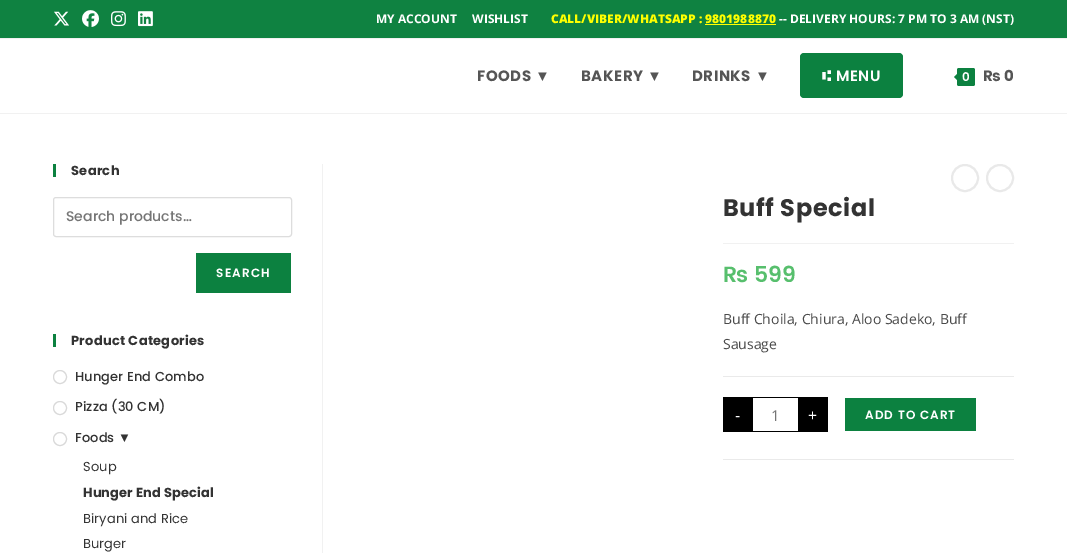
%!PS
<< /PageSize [1067 553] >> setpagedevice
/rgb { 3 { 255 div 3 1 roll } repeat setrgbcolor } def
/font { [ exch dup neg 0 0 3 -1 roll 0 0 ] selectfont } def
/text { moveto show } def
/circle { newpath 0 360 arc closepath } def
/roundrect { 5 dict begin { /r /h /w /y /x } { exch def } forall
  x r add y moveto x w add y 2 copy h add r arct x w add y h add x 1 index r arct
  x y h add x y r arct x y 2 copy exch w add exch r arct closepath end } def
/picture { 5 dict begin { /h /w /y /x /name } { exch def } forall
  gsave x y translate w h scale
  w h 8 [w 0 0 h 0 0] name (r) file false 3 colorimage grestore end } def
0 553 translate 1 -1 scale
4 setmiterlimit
255 255 255 rgb
0 0 1067 553 rectfill
15 130 65 rgb
0 0 1067 38 rectfill
241 241 241 rgb
0 38 1067 1 rectfill
(img_01.rgb) 54 11 15 15 picture
(img_02.rgb) 82 10 17 17 picture
(img_03.rgb) 111 11 15 16 picture
(img_04.rgb) 138 11 15 16 picture
255 255 0 rgb
705 24 71 1 rectfill
241 241 241 rgb
0 113 1067 1 rectfill
12 129 64 rgb
800 53 103 45 4 roundrect fill
957 68 18 18 2 roundrect fill
959 72 moveto 0 10 rlineto -5 -5 rlineto closepath fill
53 164 3 13 rectfill
221 221 221 rgb
53.5 197.5 238 39 2.5 roundrect stroke
12 129 64 rgb
196 253 95 40 rectfill
53 334 3 13 rectfill
217 217 217 rgb
60 377 6.5 circle stroke
60 408 6.5 circle stroke
60 439 6.5 circle stroke
241 241 241 rgb
322 164 1 389 rectfill
233 233 233 rgb
2 setlinewidth
965 178 13 circle stroke
1000 178 13 circle stroke
241 241 241 rgb
723 243 291 1 rectfill
234 234 234 rgb
723 376 291 1 rectfill
723 459 291 1 rectfill
0 0 0 rgb
723 397 30 35 rectfill
753 397 45 1 rectfill
753 431 45 1 rectfill
798 397 30 35 rectfill
12 129 64 rgb
845 398 131 33 rectfill
/OpenSans-Bold 12 font
255 255 255 rgb
(MY ACCOUNT) 376 23 text
(WISHLIST) 472 23 text
/OpenSans-ExtraBold 12 font
255 255 0 rgb
(CALL/VIBER/WHATSAPP : 9801988870) 551 23 text
/OpenSans-Bold 12 font
255 255 255 rgb
(-- DELIVERY HOURS: 7 PM TO 3 AM \(NST\)) 779 23 text
/Poppins-Bold 15 font
85 85 85 rgb
477 81 moveto 0.5 0 (FOODS) ashow
/LiberationSerif-Bold 15 font
535 81 moveto 0.5 0 (▼) ashow
/Poppins-Bold 15 font
581 81 moveto 0.5 0 (BAKERY) ashow
/LiberationSerif-Bold 15 font
647 81 moveto 0.5 0 (▼) ashow
/Poppins-Bold 15 font
692 81 moveto 0.5 0 (DRINKS) ashow
/LiberationSerif-Bold 15 font
755 81 moveto 0.5 0 (▼) ashow
/FreeMono-Bold 15 font
255 255 255 rgb
822 81 moveto 0.5 0 (⑆) ashow
/Poppins-SemiBold 15 font
836 81 moveto 0.5 0 (MENU) ashow
/Poppins-SemiBold 12 font
(0) 962 81 text
/Poppins-Bold 15 font
85 85 85 rgb
(₨ 0) 983 81 text
/Poppins-Bold 13 font
51 51 51 rgb
71 175 moveto 0.25 0 (Search) ashow
/Poppins-Medium 14 font
117 117 117 rgb
(Search products…) 66 221 text
/Poppins-SemiBold 12 font
255 255 255 rgb
216 277 moveto 1.25 0 (SEARCH) ashow
/Poppins-Bold 13 font
51 51 51 rgb
71 345 moveto 0.25 0 (Product Categories) ashow
/Poppins-Medium 13 font
75 381 moveto 0.1 0 (Hunger End Combo) ashow
75 411 moveto 0.1 0 (Pizza \(30 CM\)) ashow
75 442 moveto 0.1 0 (Foods) ashow
/LiberationSerif-Regular 13 font
118 442 moveto 0.1 0 (▼) ashow
/Poppins-Regular 13 font
83 471 moveto 0.1 0 (Soup) ashow
/Poppins-Bold 13 font
83 497 moveto 0.1 0 (Hunger End Special) ashow
/Poppins-Regular 13 font
83 523 moveto 0.1 0 (Biryani and Rice) ashow
83 548 moveto 0.1 0 (Burger) ashow
/Poppins-Bold 24 font
723 216 moveto 0.6 0 (Buff Special) ashow
/Poppins-SemiBold 22 font
87 191 109 rgb
(₨ 599) 723 282 text
/OpenSans-Regular 14 font
74 74 74 rgb
(Buff Choila, Chiura, Aloo Sadeko, Buff) 723 324 text
(Sausage) 723 349 text
/OpenSans-Regular 16 font
255 255 255 rgb
(-) 735 421 text
/OpenSans-Regular 15 font
117 117 117 rgb
(1) 771 421 text
/OpenSans-Regular 16 font
255 255 255 rgb
(+) 808 421 text
/Poppins-SemiBold 12 font
865 419 moveto 1 0 (ADD TO CART) ashow
showpage
